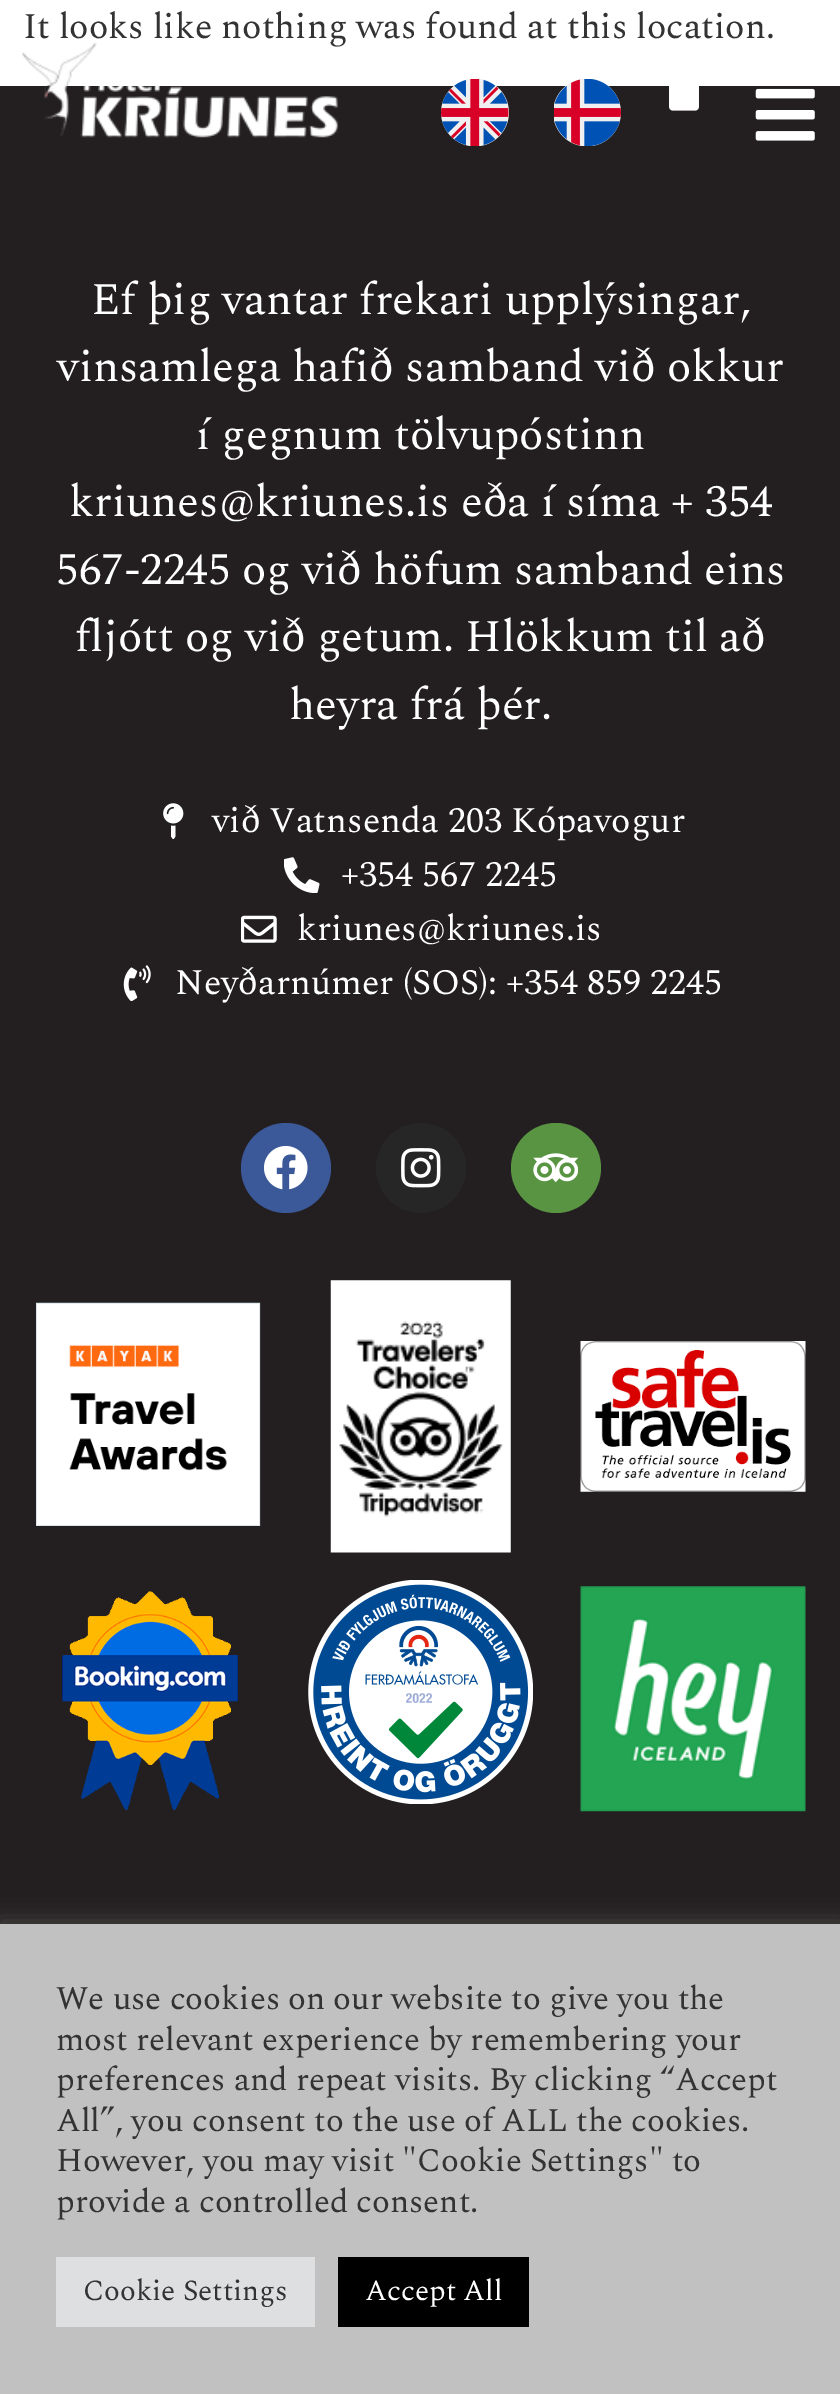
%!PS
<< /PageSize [840 2394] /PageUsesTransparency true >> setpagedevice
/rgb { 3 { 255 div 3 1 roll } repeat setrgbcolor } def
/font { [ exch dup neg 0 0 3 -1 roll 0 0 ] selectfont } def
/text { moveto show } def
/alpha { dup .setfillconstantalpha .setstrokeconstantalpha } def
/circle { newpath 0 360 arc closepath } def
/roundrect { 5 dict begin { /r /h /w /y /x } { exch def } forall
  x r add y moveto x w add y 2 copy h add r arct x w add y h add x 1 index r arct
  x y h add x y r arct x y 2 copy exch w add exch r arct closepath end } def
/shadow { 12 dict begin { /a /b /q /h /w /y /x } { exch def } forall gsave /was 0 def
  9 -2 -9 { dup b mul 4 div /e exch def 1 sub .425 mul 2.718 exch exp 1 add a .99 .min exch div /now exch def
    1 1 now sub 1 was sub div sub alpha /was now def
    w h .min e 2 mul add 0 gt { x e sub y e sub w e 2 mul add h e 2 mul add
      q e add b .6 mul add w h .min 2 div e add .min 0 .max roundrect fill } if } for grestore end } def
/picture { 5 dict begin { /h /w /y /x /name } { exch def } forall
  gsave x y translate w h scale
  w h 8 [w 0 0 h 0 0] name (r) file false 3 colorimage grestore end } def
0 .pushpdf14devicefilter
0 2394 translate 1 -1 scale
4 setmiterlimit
255 255 255 rgb
0 0 840 2394 rectfill
35 31 32 rgb
0 86 840 1838 rectfill
(img_02.rgb) 441 79 68 67 picture
(img_03.rgb) 554 79 67 67 picture
(img_04.rgb) 669 86 30 25 picture
(img_05.rgb) 755 88 60 53 picture
(img_06.rgb) 163 803 21 36 picture
(img_07.rgb) 284 857 36 36 picture
(img_08.rgb) 241 915 36 28 picture
(img_09.rgb) 123 965 28 36 picture
59 89 152 rgb
286 1168 45 circle fill
(img_10.rgb) 263 1145 45 45 picture
38 38 38 rgb
421 1168 45 circle fill
(img_11.rgb) 401 1148 40 40 picture
88 148 66 rgb
556 1168 45 circle fill
(img_12.rgb) 533 1153 45 30 picture
(img_13.rgb) 36 1302 225 224 picture
(img_14.rgb) 330 1280 181 273 picture
(img_15.rgb) 580 1341 226 151 picture
(img_16.rgb) 62 1591 176 219 picture
(img_17.rgb) 308 1580 225 224 picture
(img_18.rgb) 580 1586 226 226 picture
172 171 171 rgb
0 1922 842 470 0 11 0.3 shadow
193 193 193 rgb
0 1924 840 470 rectfill
222 223 224 rgb
56 2257 259 70 rectfill
0 0 0 rgb
338 2257 191 70 rectfill
/Spectral-Regular 36 font
51 51 51 rgb
(It looks like nothing was found at this location.) 23 38 text
(img_01.rgb) 22 42 316 96 picture
/Spectral-Regular 45 font
255 255 255 rgb
(Ef þig vantar frekari upplýsingar,) 91 314 text
(vinsamlega hafið samband við okkur) 57 381 text
(í gegnum tölvupóstinn) 196 449 text
(kriunes@kriunes.is eða í síma + 354) 69 516 text
(567-2245 og við höfum samband eins) 56 584 text
(fljótt og við getum. Hlökkum til að) 75 651 text
(heyra frá þér.) 289 719 text
/Spectral-Regular 36 font
(við Vatnsenda 203 Kópavogur) 212 832 text
(+354 567 2245) 341 886 text
(kriunes@kriunes.is) 297 940 text
(Neyðarnúmer \(SOS\): +354 859 2245) 175 994 text
/Spectral-Regular 33 font
51 51 51 rgb
(We use cookies on our website to give you the) 56 2009 text
(most relevant experience by remembering your) 56 2050 text
(preferences and repeat visits. By clicking “Accept) 56 2090 text
(All”, you consent to the use of ALL the cookies.) 56 2131 text
(However, you may visit "Cookie Settings" to) 56 2171 text
(provide a controlled consent.) 56 2212 text
/Spectral-Regular 29.25 font
(Cookie Settings) 83 2300 text
255 255 255 rgb
(Accept All) 365 2300 text
.poppdf14devicefilter showpage
